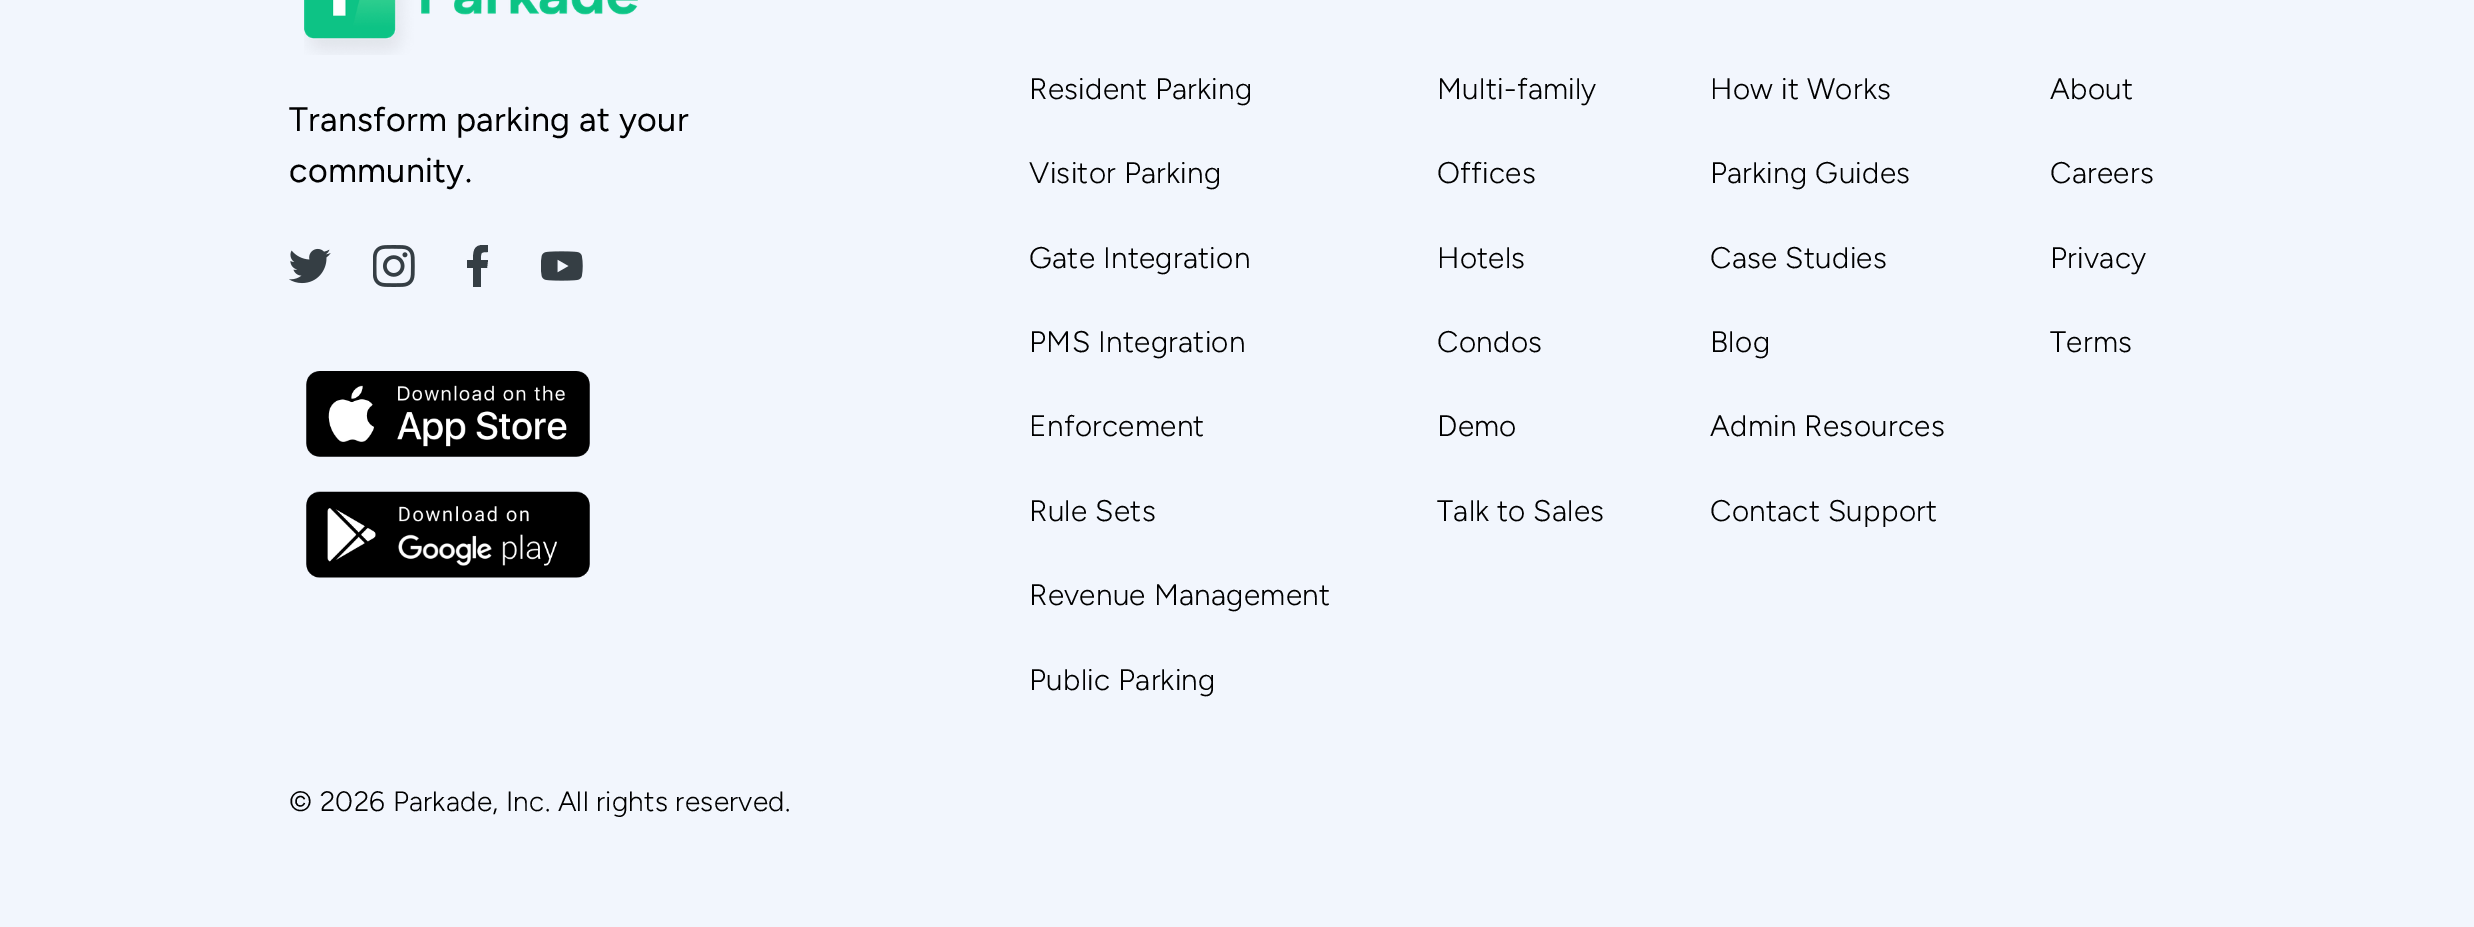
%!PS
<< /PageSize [2474 927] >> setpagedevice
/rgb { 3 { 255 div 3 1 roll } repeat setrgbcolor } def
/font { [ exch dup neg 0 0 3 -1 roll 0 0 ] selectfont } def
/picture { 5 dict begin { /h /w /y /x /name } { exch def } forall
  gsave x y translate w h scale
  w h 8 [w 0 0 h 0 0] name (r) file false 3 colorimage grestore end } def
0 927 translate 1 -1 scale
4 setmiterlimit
242 246 253 rgb
0 0 2474 927 rectfill
(img_01.rgb) 304 0 334 55 picture
(img_02.rgb) 289 248 42 36 picture
(img_03.rgb) 373 245 42 42 picture
gsave
457 245 42 42 rectclip
53 62 68 rgb
481 287 moveto 0 -19 rlineto 6 0 rlineto 1 -8 rlineto -7 0 rlineto 0 -7 -1 -8 7 -8 rcurveto 0 -7 rlineto -13 -1 -15 3 -15 15 rcurveto -6 0 rlineto 0 8 rlineto 6 0 rlineto 0 19 rlineto closepath fill
grestore
(img_04.rgb) 541 251 42 30 picture
(img_05.rgb) 306 371 284 86 picture
(img_06.rgb) 306 491 284 87 picture
/Figtree-Regular 34.1 font
0 0 0 rgb
289 131 moveto 0.3 0 (Transform parking at your) ashow
289 182 moveto 0.3 0 (community.) ashow
/Figtree-Light 29.75 font
1029 99 moveto 0.3 0 (Resident Parking) ashow
1029 183 moveto 0.3 0 (Visitor Parking) ashow
1029 268 moveto 0.3 0 (Gate Integration) ashow
1029 352 moveto 0.3 0 (PMS Integration) ashow
1029 436 moveto 0.3 0 (Enforcement) ashow
1029 521 moveto 0.3 0 (Rule Sets) ashow
1029 605 moveto 0.3 0 (Revenue Management) ashow
1029 690 moveto 0.3 0 (Public Parking) ashow
1437 99 moveto 0.3 0 (Multi-family) ashow
1437 183 moveto 0.3 0 (Offices) ashow
1437 268 moveto 0.3 0 (Hotels) ashow
1437 352 moveto 0.3 0 (Condos) ashow
1437 436 moveto 0.3 0 (Demo) ashow
1437 521 moveto 0.3 0 (Talk to Sales) ashow
1710 99 moveto 0.3 0 (How it Works) ashow
1710 183 moveto 0.3 0 (Parking Guides) ashow
1710 268 moveto 0.3 0 (Case Studies) ashow
1710 352 moveto 0.3 0 (Blog) ashow
1710 436 moveto 0.3 0 (Admin Resources) ashow
1710 521 moveto 0.3 0 (Contact Support) ashow
2050 99 moveto 0.3 0 (About) ashow
2050 183 moveto 0.3 0 (Careers) ashow
2050 268 moveto 0.3 0 (Privacy) ashow
2050 352 moveto 0.3 0 (Terms) ashow
/Figtree-Light 28 font
289 811 moveto 0.3 0 (© 2026 Parkade, Inc. All rights reserved.) ashow
showpage
